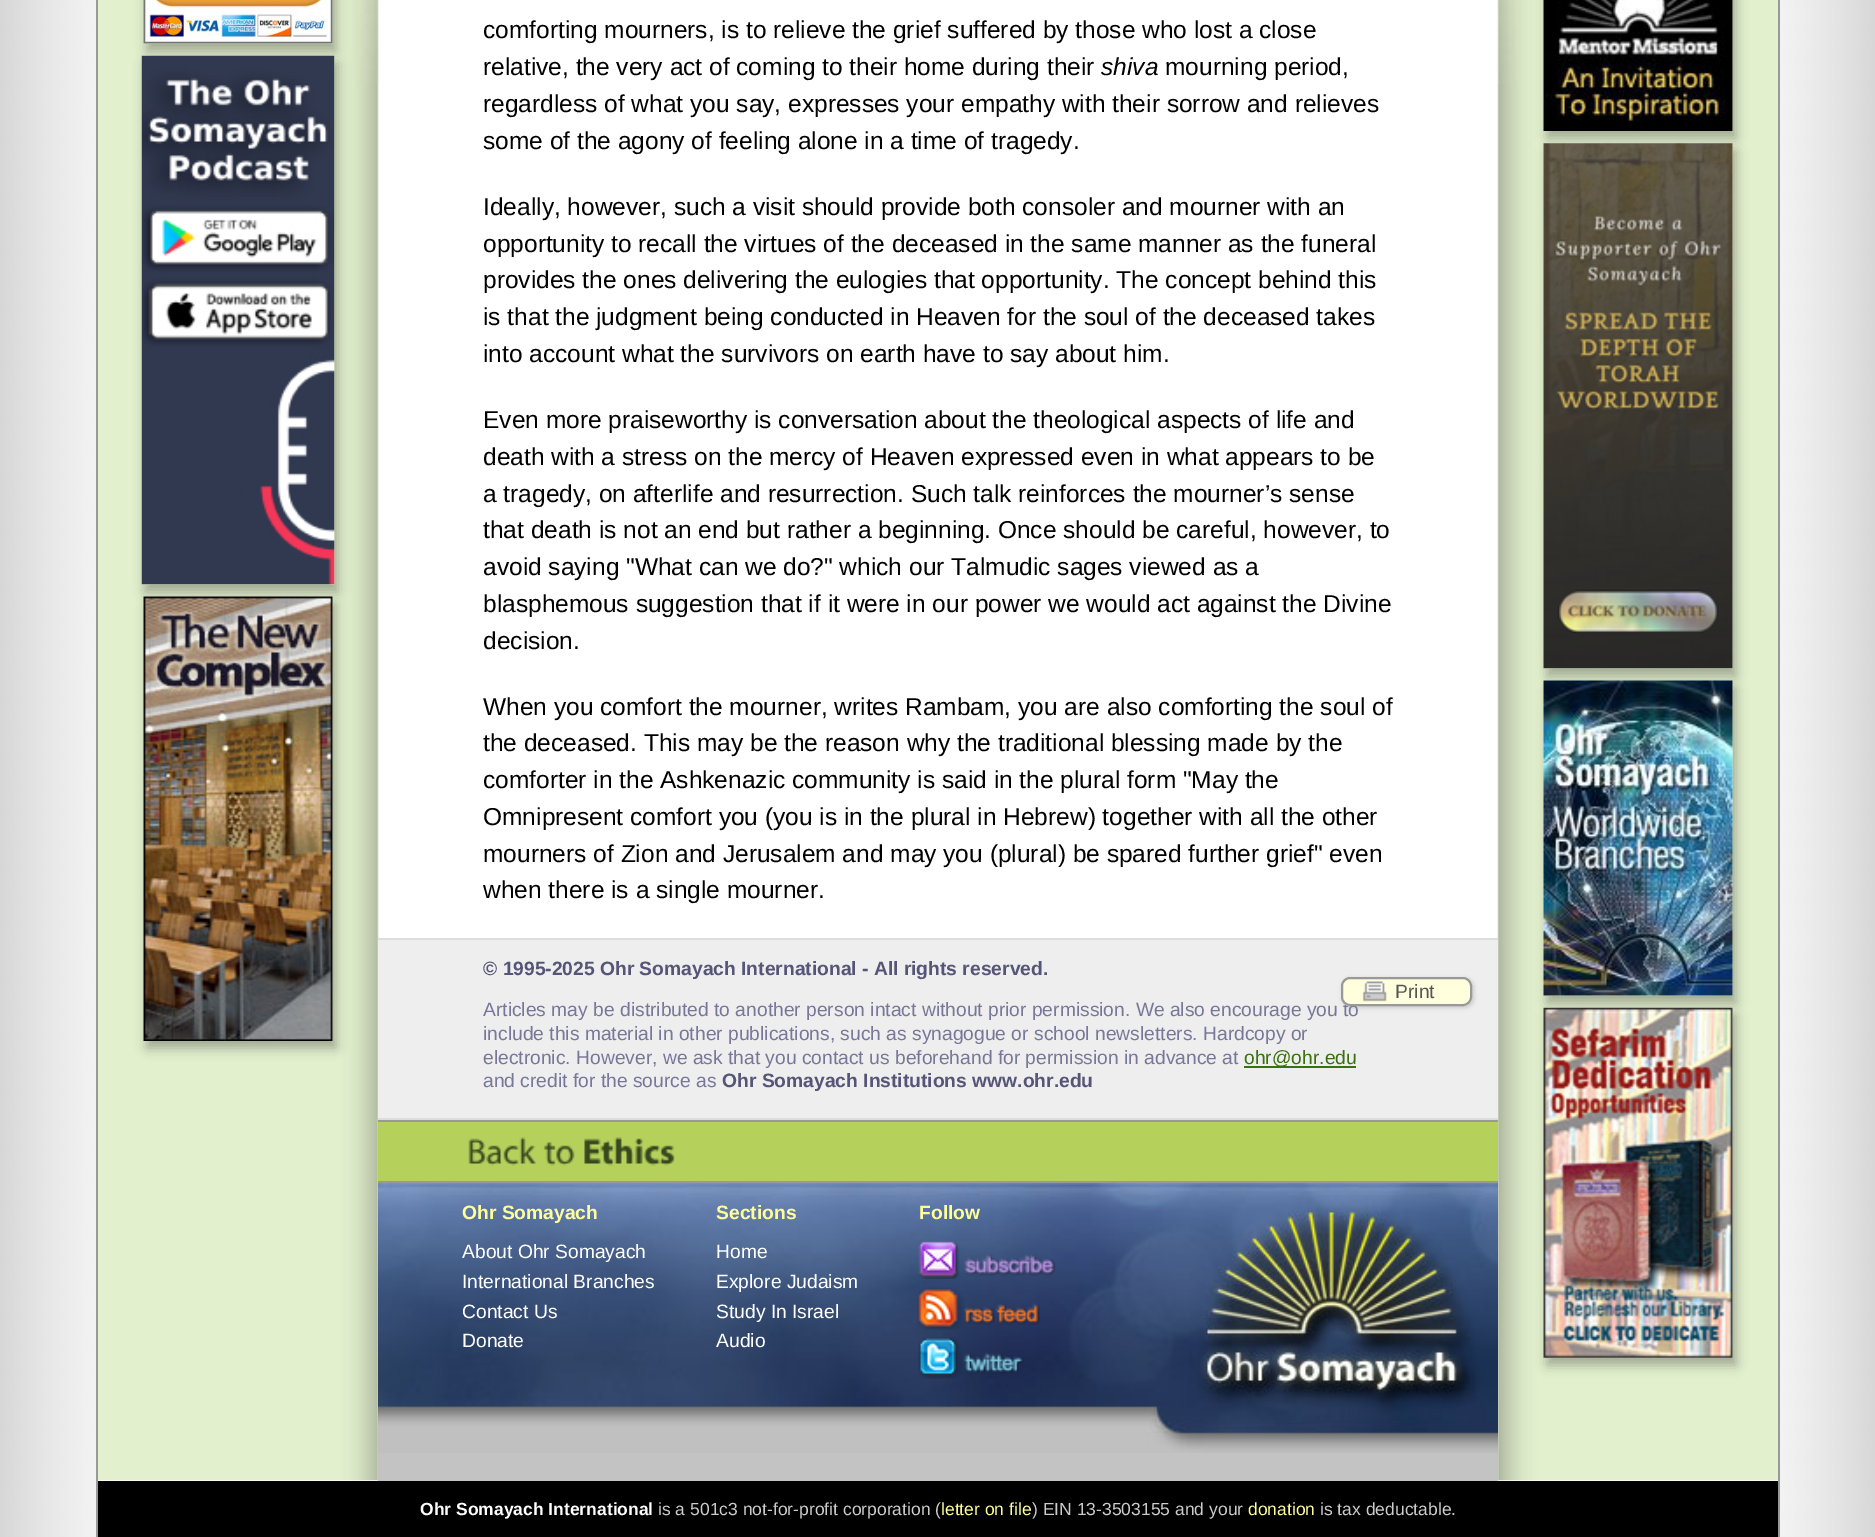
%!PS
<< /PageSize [1875 1537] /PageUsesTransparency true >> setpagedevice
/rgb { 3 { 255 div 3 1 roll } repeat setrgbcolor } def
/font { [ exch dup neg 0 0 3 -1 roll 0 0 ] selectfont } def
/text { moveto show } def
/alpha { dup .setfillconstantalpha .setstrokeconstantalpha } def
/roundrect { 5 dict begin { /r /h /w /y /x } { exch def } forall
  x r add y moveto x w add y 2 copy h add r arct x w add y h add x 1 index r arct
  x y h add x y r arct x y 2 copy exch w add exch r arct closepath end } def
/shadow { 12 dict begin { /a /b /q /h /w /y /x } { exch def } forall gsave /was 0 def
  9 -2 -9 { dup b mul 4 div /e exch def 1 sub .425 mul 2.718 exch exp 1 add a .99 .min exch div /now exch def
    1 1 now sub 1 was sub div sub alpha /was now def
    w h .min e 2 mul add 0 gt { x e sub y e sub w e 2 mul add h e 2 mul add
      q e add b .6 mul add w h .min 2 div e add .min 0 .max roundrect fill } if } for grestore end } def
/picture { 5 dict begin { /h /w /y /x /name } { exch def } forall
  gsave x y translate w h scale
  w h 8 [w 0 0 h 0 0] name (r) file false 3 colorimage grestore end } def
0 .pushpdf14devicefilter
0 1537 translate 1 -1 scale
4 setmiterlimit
255 255 255 rgb
0 0 1875 1537 rectfill
(img_01.rgb) 0 0 1875 1537 picture
98 1480 1680 1 rectfill
153 153 153 rgb
1778 0 2 1537 rectfill
96 0 2 1537 rectfill
(img_02.rgb) 98 0 1680 1481 picture
(img_03.rgb) 358 0 1161 84 picture
0 0 0 rgb
147 -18 189 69 0 6 0.3 shadow
(img_04.rgb) 143 0 190 44 picture
145 63 193 529 0 6 0.3 shadow
(img_05.rgb) 141 55 194 530 picture
147 604 189 444 0 6 0.3 shadow
(img_06.rgb) 143 596 190 445 picture
238 238 238 rgb
378 940 1120 178 rectfill
204 204 204 rgb
1342 978 132 30 9 2 1 shadow
221 221 221 rgb
378 938 1120 2 rectfill
378 1118 1120 2 rectfill
57 113 17 rgb
1244 1066 112 2 rectfill
181 209 92 rgb
378 1122 1120 59 rectfill
153 153 153 rgb
378 1120 1120 2 rectfill
378 1181 1120 2 rectfill
(img_08.rgb) 468 1137 68 29 picture
(img_09.rgb) 543 1142 32 24 picture
(img_10.rgb) 584 1137 91 29 picture
0 0 0 rgb
1547 -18 189 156 0 6 0.3 shadow
(img_11.rgb) 1543 0 190 131 picture
1547 151 189 525 0 6 0.3 shadow
(img_12.rgb) 1543 143 190 526 picture
1547 688 189 315 0 6 0.3 shadow
(img_13.rgb) 1543 680 190 316 picture
1547 1015 189 350 0 6 0.3 shadow
(img_14.rgb) 1543 1007 190 351 picture
195 195 195 rgb
378 1453 1120 28 rectfill
(img_15.rgb) 378 1183 1120 270 picture
(img_16.rgb) 918 1241 138 38 picture
(img_17.rgb) 917 1287 123 43 picture
(img_18.rgb) 918 1337 106 42 picture
0 0 0 rgb
98 1481 1680 56 rectfill
/LiberationSans-Regular 24.5 font
(comforting mourners, is to relieve the grief suffered by those who lost a close) 483 38 text
(relative, the very act of coming to their home during their) 483 75 text
/LiberationSans-Italic 24.5 font
(shiva) 1101 75 text
/LiberationSans-Regular 24.5 font
(mourning period,) 1165 75 text
(regardless of what you say, expresses your empathy with their sorrow and relieves) 483 112 text
(some of the agony of feeling alone in a time of tragedy.) 483 149 text
(Ideally, however, such a visit should provide both consoler and mourner with an) 483 215 text
(opportunity to recall the virtues of the deceased in the same manner as the funeral) 483 252 text
(provides the ones delivering the eulogies that opportunity. The concept behind this) 483 288 text
(is that the judgment being conducted in Heaven for the soul of the deceased takes) 483 325 text
(into account what the survivors on earth have to say about him.) 483 362 text
(Even more praiseworthy is conversation about the theological aspects of life and) 483 428 text
(death with a stress on the mercy of Heaven expressed even in what appears to be) 483 465 text
(a tragedy, on afterlife and resurrection. Such talk reinforces the mourner’s sense) 483 502 text
(that death is not an end but rather a beginning. Once should be careful, however, to) 483 538 text
(avoid saying "What can we do?" which our Talmudic sages viewed as a) 483 575 text
(blasphemous suggestion that if it were in our power we would act against the Divine) 483 612 text
(decision.) 483 649 text
(When you comfort the mourner, writes Rambam, you are also comforting the soul of) 483 715 text
(the deceased. This may be the reason why the traditional blessing made by the) 483 751 text
(comforter in the Ashkenazic community is said in the plural form "May the) 483 788 text
(Omnipresent comfort you \(you is in the plural in Hebrew\) together with all the other) 483 825 text
(mourners of Zion and Jerusalem and may you \(plural\) be spared further grief" even) 483 862 text
(when there is a single mourner.) 483 898 text
/LiberationSans-Bold 19.25 font
85 85 119 rgb
(© 1995-2025 Ohr Somayach International - All rights reserved.) 483 975 text
/LiberationSans-Regular 19.25 font
119 119 153 rgb
(Articles may be distributed to another person intact without prior permission. We also encourage you to) 483 1016 text
255 255 221 rgb
1341 977 131 29 9 roundrect fill
(img_07.rgb) 1362 981 25 21 picture
153 153 153 rgb
2 setlinewidth
1342 978 129 27 8 roundrect stroke
85 85 85 rgb
(Print) 1395 998 text
119 119 153 rgb
(include this material in other publications, such as synagogue or school newsletters. Hardcopy or) 483 1040 text
(electronic. However, we ask that you contact us beforehand for permission in advance at) 483 1064 text
57 113 17 rgb
(ohr@ohr.edu) 1244 1064 text
119 119 153 rgb
(and credit for the source as) 483 1087 text
/LiberationSans-Bold 19.25 font
85 85 119 rgb
(Ohr Somayach Institutions www.ohr.edu) 722 1087 text
255 255 153 rgb
(Ohr Somayach) 462 1219 text
(Sections) 716 1219 text
(Follow) 919 1219 text
/LiberationSans-Regular 19.25 font
255 255 255 rgb
(About Ohr Somayach) 462 1258 text
(International Branches) 462 1288 text
(Contact Us) 462 1318 text
(Donate) 462 1347 text
(Home) 716 1258 text
(Explore Judaism) 716 1288 text
(Study In Israel) 716 1318 text
(Audio) 716 1347 text
/LiberationSans-Bold 17.5 font
(Ohr Somayach International) 420 1515 text
/LiberationSans-Regular 17.5 font
204 204 204 rgb
(is a 501c3 not-for-profit corporation \() 658 1515 text
255 255 153 rgb
(letter on file) 941 1515 text
204 204 204 rgb
(\) EIN 13-3503155 and your) 1032 1515 text
255 255 153 rgb
(donation) 1248 1515 text
204 204 204 rgb
(is tax deductable.) 1320 1515 text
.poppdf14devicefilter showpage
